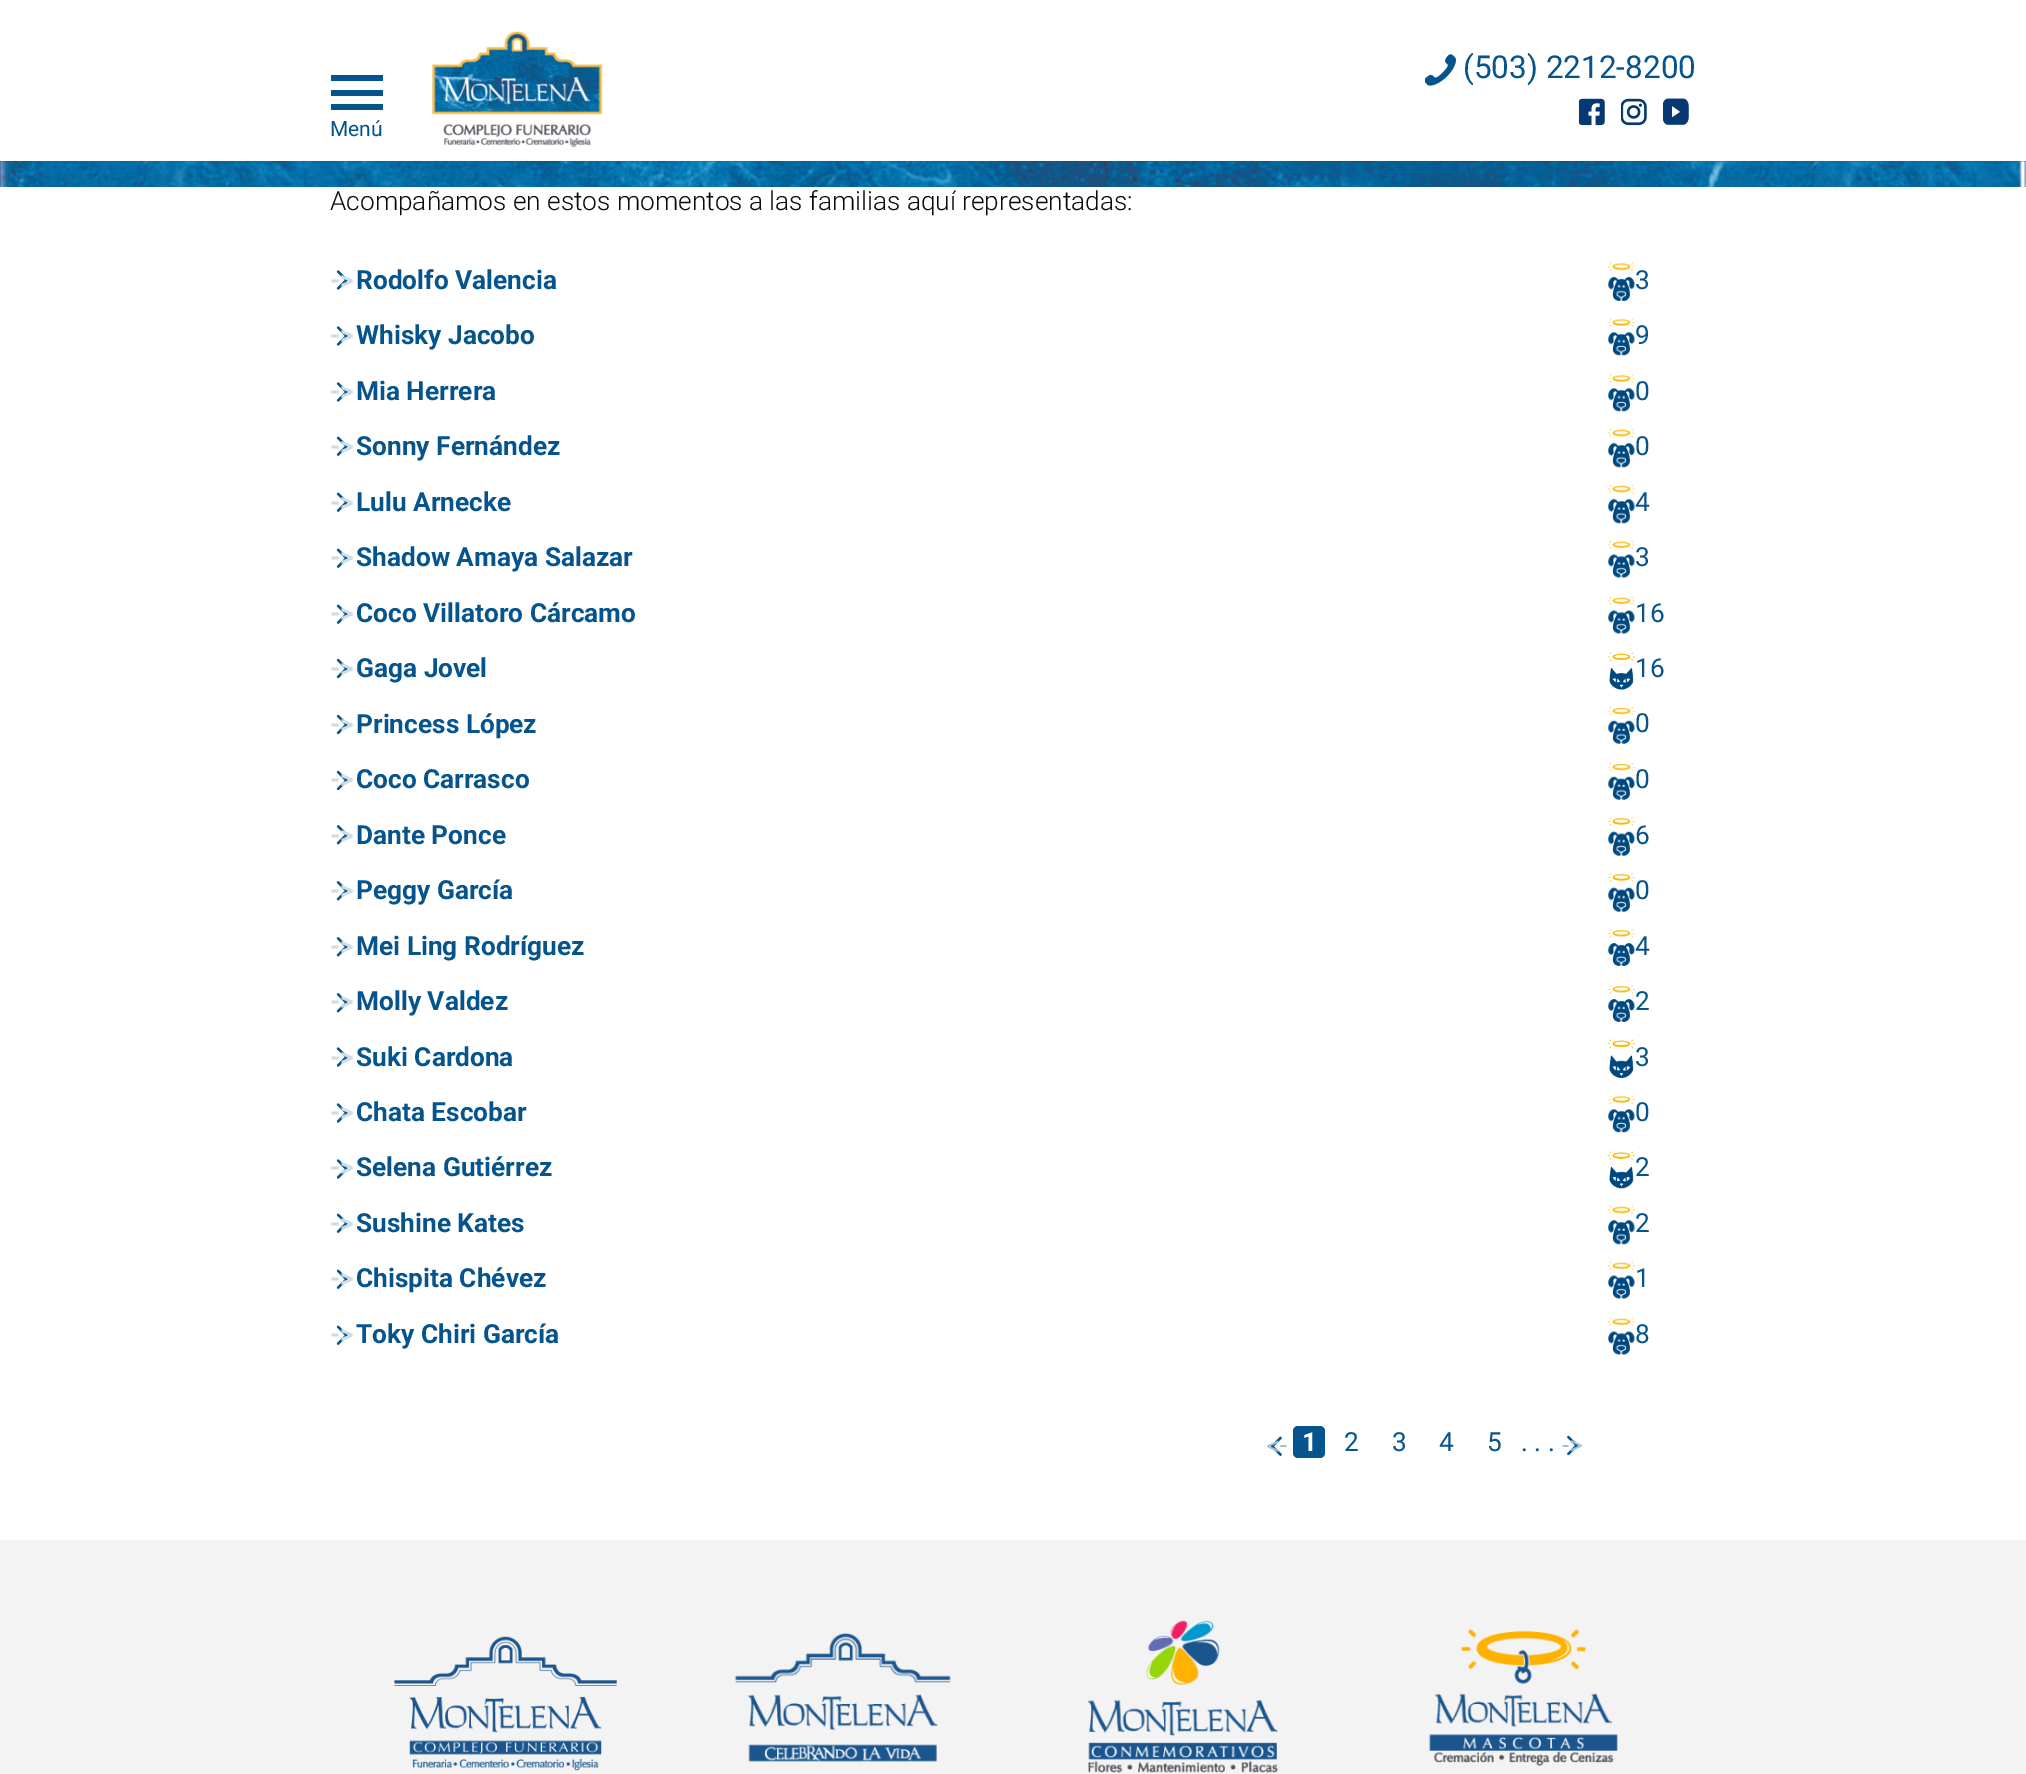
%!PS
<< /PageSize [2026 1774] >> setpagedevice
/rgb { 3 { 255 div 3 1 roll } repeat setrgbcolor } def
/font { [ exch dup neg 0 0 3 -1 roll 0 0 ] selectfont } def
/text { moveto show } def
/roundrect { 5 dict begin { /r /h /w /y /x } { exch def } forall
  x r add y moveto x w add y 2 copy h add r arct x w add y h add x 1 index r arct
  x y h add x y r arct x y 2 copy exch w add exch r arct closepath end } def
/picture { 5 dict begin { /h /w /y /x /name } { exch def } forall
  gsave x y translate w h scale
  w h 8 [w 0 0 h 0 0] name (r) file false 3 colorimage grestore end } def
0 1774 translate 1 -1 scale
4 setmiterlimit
255 255 255 rgb
0 0 2026 1774 rectfill
(img_01.rgb) 432 31 171 117 picture
(img_02.rgb) 1425 54 31 32 picture
(img_03.rgb) 1579 98 26 28 picture
(img_04.rgb) 1621 98 26 28 picture
(img_05.rgb) 1663 98 26 27 picture
5 84 141 rgb
331 104 52 6 rectfill
331 90 52 6 rectfill
331 75 52 6 rectfill
0 161 2026 26 rectfill
(img_06.rgb) 0 161 2026 26 picture
(img_07.rgb) 336 270 12 20 picture
(img_08.rgb) 1608 262 27 39 picture
(img_07.rgb) 336 326 12 20 picture
(img_09.rgb) 1608 318 27 38 picture
(img_07.rgb) 336 382 12 20 picture
(img_09.rgb) 1608 374 27 38 picture
(img_10.rgb) 336 436 12 20 picture
(img_11.rgb) 1608 428 27 40 picture
(img_10.rgb) 336 492 12 20 picture
(img_11.rgb) 1608 484 27 40 picture
(img_10.rgb) 336 548 12 20 picture
(img_12.rgb) 1608 540 27 38 picture
(img_10.rgb) 336 604 12 20 picture
(img_12.rgb) 1608 596 27 38 picture
(img_13.rgb) 336 658 12 21 picture
(img_14.rgb) 1608 652 27 38 picture
(img_13.rgb) 336 714 12 21 picture
(img_15.rgb) 1608 707 27 37 picture
(img_13.rgb) 336 770 12 21 picture
(img_15.rgb) 1608 763 27 37 picture
(img_16.rgb) 336 825 12 20 picture
(img_17.rgb) 1608 817 27 39 picture
(img_16.rgb) 336 881 12 20 picture
(img_17.rgb) 1608 873 27 39 picture
(img_16.rgb) 336 937 12 20 picture
(img_18.rgb) 1608 929 27 37 picture
(img_16.rgb) 336 993 12 20 picture
(img_18.rgb) 1608 985 27 37 picture
(img_07.rgb) 336 1047 12 20 picture
(img_19.rgb) 1608 1039 27 39 picture
(img_07.rgb) 336 1103 12 20 picture
(img_09.rgb) 1608 1095 27 38 picture
(img_07.rgb) 336 1159 12 20 picture
(img_20.rgb) 1608 1151 27 38 picture
(img_10.rgb) 336 1213 12 20 picture
(img_11.rgb) 1608 1205 27 40 picture
(img_10.rgb) 336 1269 12 20 picture
(img_12.rgb) 1608 1261 27 38 picture
(img_10.rgb) 336 1325 12 20 picture
(img_12.rgb) 1608 1317 27 38 picture
(img_21.rgb) 1271 1436 11 20 picture
1293 1426 32 32 5 roundrect fill
(img_22.rgb) 1567 1435 11 21 picture
243 243 243 rgb
0 1540 2026 234 rectfill
(img_23.rgb) 394 1636 223 135 picture
(img_24.rgb) 734 1633 217 129 picture
(img_25.rgb) 1087 1620 191 153 picture
(img_26.rgb) 1429 1629 189 137 picture
/Roboto-Regular 31.5 font
5 84 141 rgb
(\(503\) 2212-8200) 1463 78 text
/Roboto-Regular 21 font
(Menú) 330 136 text
/Roboto-Light 26.25 font
10 10 10 rgb
(Acompañamos en estos momentos a las familias aquí representadas:) 330 210 text
/Roboto-Bold 26.25 font
205 221 232 rgb
(->) 330 289 text
5 84 141 rgb
(Rodolfo Valencia) 356 289 text
/Roboto-Regular 26.25 font
(3) 1635 289 text
/Roboto-Bold 26.25 font
205 221 232 rgb
(->) 330 344 text
5 84 141 rgb
(Whisky Jacobo) 356 344 text
/Roboto-Regular 26.25 font
(9) 1635 344 text
/Roboto-Bold 26.25 font
205 221 232 rgb
(->) 330 400 text
5 84 141 rgb
(Mia Herrera) 356 400 text
/Roboto-Regular 26.25 font
(0) 1635 400 text
/Roboto-Bold 26.25 font
205 221 232 rgb
(->) 330 455 text
5 84 141 rgb
(Sonny Fernández) 356 455 text
/Roboto-Regular 26.25 font
(0) 1635 455 text
/Roboto-Bold 26.25 font
205 221 232 rgb
(->) 330 511 text
5 84 141 rgb
(Lulu Arnecke) 356 511 text
/Roboto-Regular 26.25 font
(4) 1635 511 text
/Roboto-Bold 26.25 font
205 221 232 rgb
(->) 330 566 text
5 84 141 rgb
(Shadow Amaya Salazar) 356 566 text
/Roboto-Regular 26.25 font
(3) 1635 566 text
/Roboto-Bold 26.25 font
205 221 232 rgb
(->) 330 622 text
5 84 141 rgb
(Coco Villatoro Cárcamo) 356 622 text
/Roboto-Regular 26.25 font
(16) 1635 622 text
/Roboto-Bold 26.25 font
205 221 232 rgb
(->) 330 677 text
5 84 141 rgb
(Gaga Jovel) 356 677 text
/Roboto-Regular 26.25 font
(16) 1635 677 text
/Roboto-Bold 26.25 font
205 221 232 rgb
(->) 330 733 text
5 84 141 rgb
(Princess López) 356 733 text
/Roboto-Regular 26.25 font
(0) 1635 732 text
/Roboto-Bold 26.25 font
205 221 232 rgb
(->) 330 788 text
5 84 141 rgb
(Coco Carrasco) 356 788 text
/Roboto-Regular 26.25 font
(0) 1635 788 text
/Roboto-Bold 26.25 font
205 221 232 rgb
(->) 330 844 text
5 84 141 rgb
(Dante Ponce) 356 844 text
/Roboto-Regular 26.25 font
(6) 1635 844 text
/Roboto-Bold 26.25 font
205 221 232 rgb
(->) 330 899 text
5 84 141 rgb
(Peggy García) 356 899 text
/Roboto-Regular 26.25 font
(0) 1635 899 text
/Roboto-Bold 26.25 font
205 221 232 rgb
(->) 330 955 text
5 84 141 rgb
(Mei Ling Rodríguez) 356 955 text
/Roboto-Regular 26.25 font
(4) 1635 955 text
/Roboto-Bold 26.25 font
205 221 232 rgb
(->) 330 1010 text
5 84 141 rgb
(Molly Valdez) 356 1010 text
/Roboto-Regular 26.25 font
(2) 1635 1010 text
/Roboto-Bold 26.25 font
205 221 232 rgb
(->) 330 1066 text
5 84 141 rgb
(Suki Cardona) 356 1066 text
/Roboto-Regular 26.25 font
(3) 1635 1066 text
/Roboto-Bold 26.25 font
205 221 232 rgb
(->) 330 1121 text
5 84 141 rgb
(Chata Escobar) 356 1121 text
/Roboto-Regular 26.25 font
(0) 1635 1121 text
/Roboto-Bold 26.25 font
205 221 232 rgb
(->) 330 1176 text
5 84 141 rgb
(Selena Gutiérrez) 356 1176 text
/Roboto-Regular 26.25 font
(2) 1635 1176 text
/Roboto-Bold 26.25 font
205 221 232 rgb
(->) 330 1232 text
5 84 141 rgb
(Sushine Kates) 356 1232 text
/Roboto-Regular 26.25 font
(2) 1635 1232 text
/Roboto-Bold 26.25 font
205 221 232 rgb
(->) 330 1287 text
5 84 141 rgb
(Chispita Chévez) 356 1287 text
/Roboto-Regular 26.25 font
(1) 1635 1287 text
/Roboto-Bold 26.25 font
205 221 232 rgb
(->) 330 1343 text
5 84 141 rgb
(Toky Chiri García) 356 1343 text
/Roboto-Regular 26.25 font
(8) 1635 1343 text
160 190 212 rgb
gsave 1287 1438 translate 180 rotate 0 0 moveto (->) show grestore
/Roboto-Bold 26.25 font
255 255 255 rgb
(1) 1302 1451 text
/Roboto-Regular 26.25 font
5 84 141 rgb
(2) 1344 1451 text
(3) 1392 1451 text
(4) 1439 1451 text
(5) 1487 1451 text
(. . .) 1521 1451 text
160 190 212 rgb
(->) 1562 1454 text
showpage
